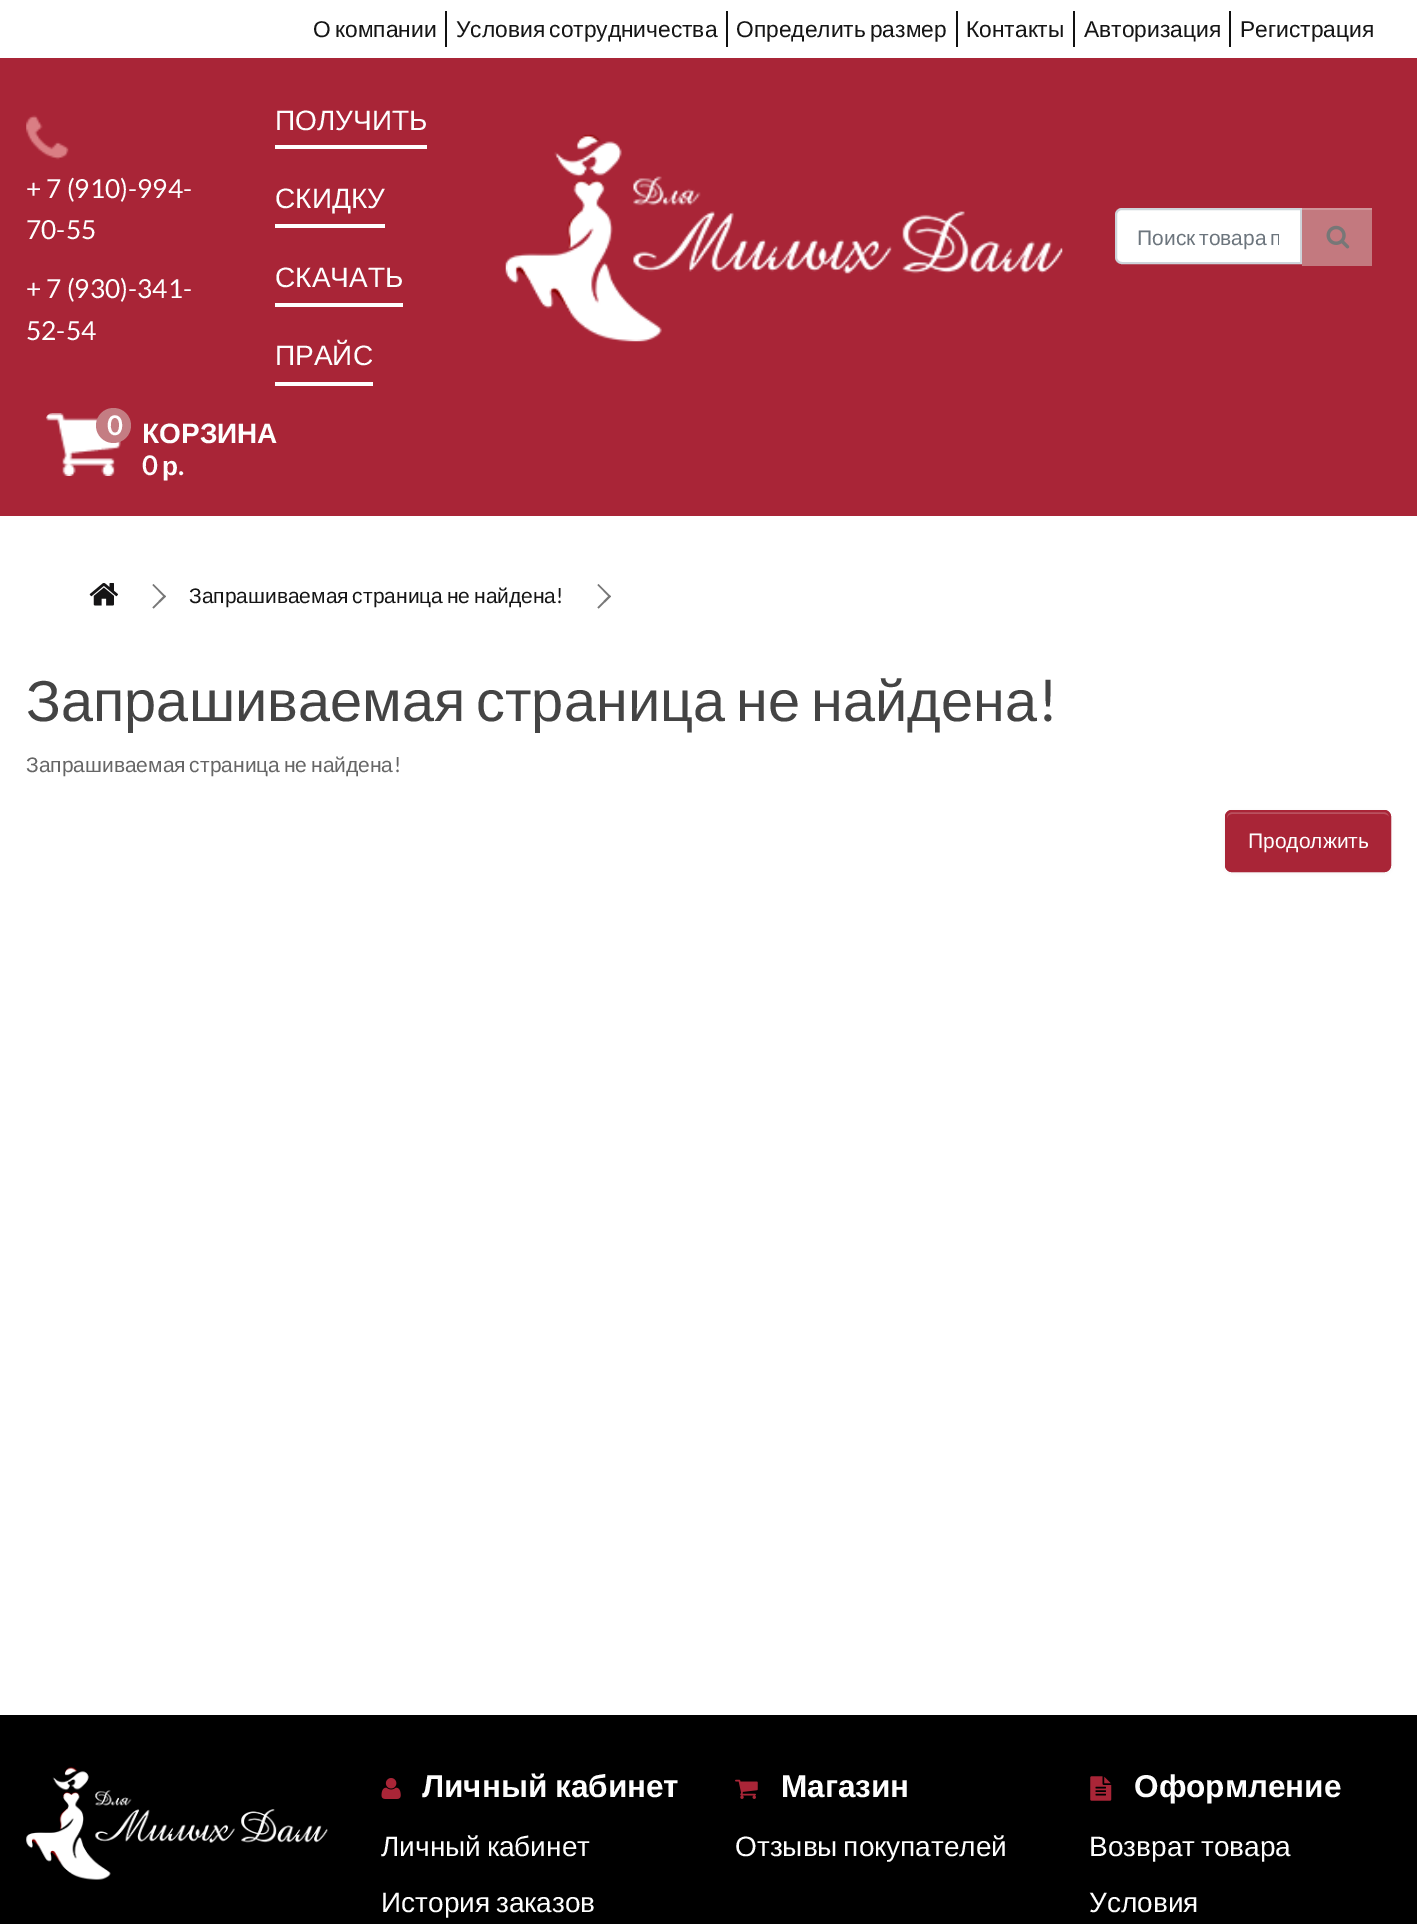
%!PS
<< /PageSize [1417 1924] /PageUsesTransparency true >> setpagedevice
/rgb { 3 { 255 div 3 1 roll } repeat setrgbcolor } def
/font { [ exch dup neg 0 0 3 -1 roll 0 0 ] selectfont } def
/text { moveto show } def
/alpha { dup .setfillconstantalpha .setstrokeconstantalpha } def
/circle { newpath 0 360 arc closepath } def
/roundrect { 5 dict begin { /r /h /w /y /x } { exch def } forall
  x r add y moveto x w add y 2 copy h add r arct x w add y h add x 1 index r arct
  x y h add x y r arct x y 2 copy exch w add exch r arct closepath end } def
/shadow { 12 dict begin { /a /b /q /h /w /y /x } { exch def } forall gsave /was 0 def
  9 -2 -9 { dup b mul 4 div /e exch def 1 sub .425 mul 2.718 exch exp 1 add a .99 .min exch div /now exch def
    1 1 now sub 1 was sub div sub alpha /was now def
    w h .min e 2 mul add 0 gt { x e sub y e sub w e 2 mul add h e 2 mul add
      q e add b .6 mul add w h .min 2 div e add .min 0 .max roundrect fill } if } for grestore end } def
/picture { 5 dict begin { /h /w /y /x /name } { exch def } forall
  gsave x y translate w h scale
  w h 8 [w 0 0 h 0 0] name (r) file false 3 colorimage grestore end } def
0 .pushpdf14devicefilter
0 1924 translate 1 -1 scale
4 setmiterlimit
255 255 255 rgb
0 0 1417 1924 rectfill
17 17 17 rgb
445 11 2 36 rectfill
726 11 2 36 rectfill
956 11 2 36 rectfill
1073 11 2 36 rectfill
1229 11 2 36 rectfill
169 37 55 rgb
0 58 1417 458 rectfill
(img_01.rgb) 26 115 43 45 picture
255 255 255 rgb
275 145 152 4 rectfill
275 224 110 4 rectfill
275 303 128 4 rectfill
275 382 98 4 rectfill
(img_02.rgb) 505 134 558 208 picture
1122 209 moveto 179 0 rlineto 0 54 rlineto -179 0 rlineto -3.5 0 -6 -2.5 -6 -6 rcurveto 0 -42 rlineto 0 -3.5 2.5 -6 6 -6 rcurveto closepath gsave fill grestore
206 212 218 rgb
2 setlinewidth
stroke
195 121 127 rgb
1302 210 70 56 rectfill
207 148 153 rgb
1302 208 70 2 rectfill
(img_03.rgb) 1326 225 24 24 picture
(img_04.rgb) 46 413 75 63 picture
196 125 131 rgb
113.5 425.5 17.5 circle fill
(img_05.rgb) 89 583 29 23 picture
119 119 119 rgb
152.5 585 moveto 1 -1 rlineto 12.5 12.5 rlineto -1.5 1 rlineto closepath fill
152.5 607.5 moveto 12 -12.5 rlineto 1.5 1.5 rlineto -12.5 12 rlineto closepath fill
597.5 585 moveto 1 -1 rlineto 12.5 12.5 rlineto -1.5 1 rlineto closepath fill
597.5 607.5 moveto 12 -12.5 rlineto 1.5 1.5 rlineto -12.5 12 rlineto closepath fill
0 0 0 rgb
1225 812 166 61 7 2 0.05 shadow
169 37 55 rgb
1225 810 166 62 7 roundrect fill
186 81 95 rgb
1232 814 moveto 152 0 rlineto 3 0 6 2 6 5 rcurveto 0 -2 rlineto 0 -3 -2 -5 -5 -5 rcurveto -153 0 rlineto -3 0 -5 2 -5 5 rcurveto 0 2 rlineto 0 -3 2 -5 5 -5 rcurveto closepath fill
169 37 55 rgb
1226 811 164 60 6 roundrect stroke
0 0 0 rgb
0 1715 1417 209 rectfill
(img_06.rgb) 26 1767 302 113 picture
(img_07.rgb) 381 1778 20 21 picture
(img_08.rgb) 735 1779 23 20 picture
(img_09.rgb) 1090 1776 22 25 picture
/LiberationSans-Regular 22.75 font
21 21 21 rgb
313 37 moveto -2 0 32 (О компании) widthshow
456 37 moveto -2 0 32 (Условия сотрудничества) widthshow
736 37 moveto -2 0 32 (Определить размер) widthshow
(Контакты) 966 37 text
(Авторизация) 1084 37 text
(Регистрация) 1240 37 text
/Lato-Regular 26.25 font
254 254 254 rgb
(+ 7 \(910\)-994-) 26 198 text
(70-55) 26 239 text
(+ 7 \(930\)-341-) 26 298 text
(52-54) 26 340 text
/LiberationSans-Regular 28 font
(ПОЛУЧИТЬ) 275 130 text
(СКИДКУ) 275 208 text
(СКАЧАТЬ) 275 287 text
(ПРАЙС) 275 365 text
gsave
1138 224 141 26 rectclip
/LiberationSans-Regular 21 font
108 117 125 rgb
1137 245 moveto -2 0 32 (Поиск товара п) widthshow
grestore
/Lato-Bold 26.25 font
(0) 107 435 text
/LiberationSans-Bold 28 font
(КОРЗИНА) 142 443 text
/Lato-Bold 26.25 font
(0) 142 475 text
/LiberationSans-Bold 26.25 font
(р) 162 475 text
/Lato-Bold 26.25 font
(.) 178 475 text
/LiberationSans-Regular 21 font
21 21 21 rgb
189 603 moveto -2 0 32 (Запрашиваемая страница не найдена) widthshow
/Lato-Regular 21 font
(!) 556 603 text
/LiberationSans-Regular 57.75 font
68 68 68 rgb
26 721 moveto -5 0 32 (Запрашиваемая страница не найдена) widthshow
/Lato-Regular 57.75 font
(!) 1038 721 text
/LiberationSans-Regular 21 font
102 102 102 rgb
26 772 moveto -2 0 32 (Запрашиваемая страница не найдена) widthshow
/Lato-Regular 21 font
(!) 394 772 text
/LiberationSans-Regular 21 font
254 254 254 rgb
(Продолжить) 1248 848 text
/LiberationSans-Bold 31.5 font
422 1797 moveto -1 0 32 (Личный кабинет) widthshow
/LiberationSans-Regular 28 font
381 1856 moveto -2 0 32 (Личный кабинет) widthshow
381 1912 moveto -2 0 32 (История заказов) widthshow
/LiberationSans-Bold 31.5 font
(Магазин) 781 1797 text
/LiberationSans-Regular 28 font
735 1856 moveto -2 0 32 (Отзывы покупателей) widthshow
/LiberationSans-Bold 31.5 font
(Оформление) 1134 1797 text
/LiberationSans-Regular 28 font
1089 1856 moveto -2 0 32 (Возврат товара) widthshow
(Условия) 1089 1912 text
.poppdf14devicefilter showpage
